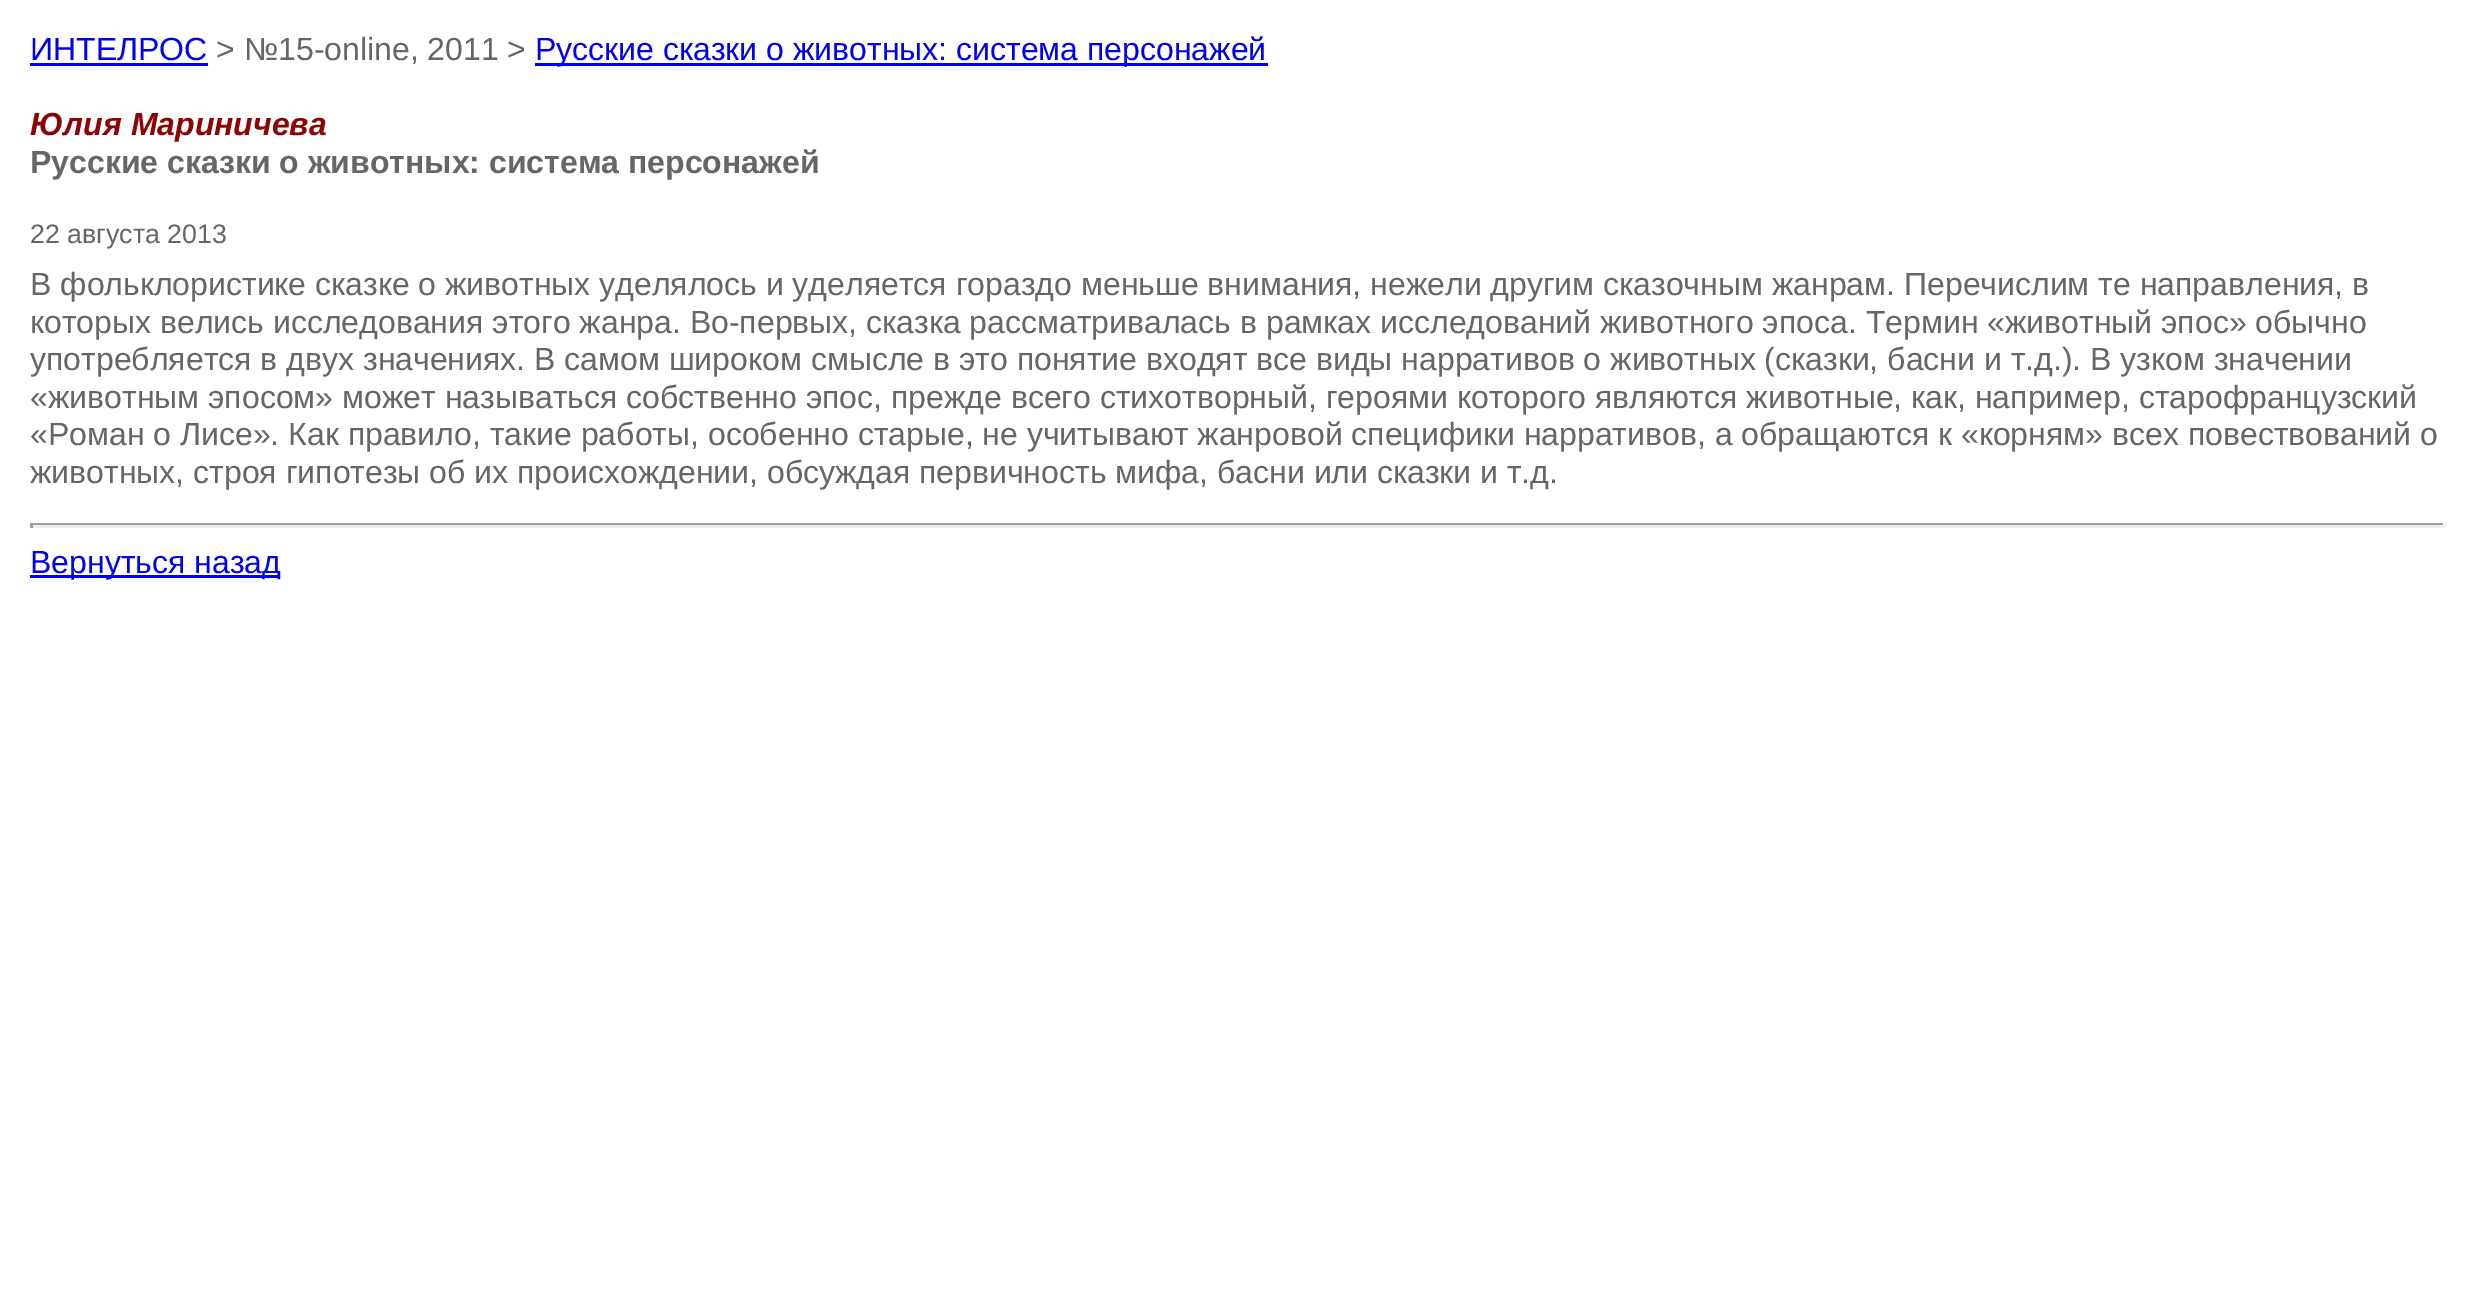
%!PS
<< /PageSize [2474 1296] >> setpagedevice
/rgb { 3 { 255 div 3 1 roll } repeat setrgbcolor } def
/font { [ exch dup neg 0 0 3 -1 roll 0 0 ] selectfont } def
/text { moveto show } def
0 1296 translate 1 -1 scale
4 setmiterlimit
255 255 255 rgb
0 0 2474 1296 rectfill
0 0 238 rgb
30 63 178 3 rectfill
535 63 733 3 rectfill
159 159 159 rgb
30 523 2415 2 rectfill
238 238 238 rgb
2443 523 3 5 rectfill
30 525 2415 3 rectfill
159 159 159 rgb
30 523 3 5 rectfill
0 0 238 rgb
30 575 250 3 rectfill
/LiberationSans-Regular 32 font
(ИНТЕЛРОС) 30 60 text
102 102 102 rgb
(> №15-online, 2011 >) 216 60 text
0 0 238 rgb
(Русские сказки о животных: система персонажей) 535 60 text
/LiberationSans-BoldItalic 32 font
141 4 4 rgb
(Юлия Мариничева) 30 135 text
/LiberationSans-Bold 32 font
102 102 102 rgb
(Русские сказки о животных: система персонажей) 30 173 text
/LiberationSans-Regular 26.75 font
(22 августа 2013) 30 243 text
/LiberationSans-Regular 32 font
(В фольклористике сказке о животных уделялось и уделяется гораздо меньше внимания, нежели другим сказочным жанрам. Перечислим те направления, в) 30 295 text
(которых велись исследования этого жанра. Во-первых, сказка рассматривалась в рамках исследований животного эпоса. Термин «животный эпос» обычно) 30 333 text
(употребляется в двух значениях. В самом широком смысле в это понятие входят все виды нарративов о животных \(сказки, басни и т.д.\). В узком значении) 30 370 text
(«животным эпосом» может называться собственно эпос, прежде всего стихотворный, героями которого являются животные, как, например, старофранцузский) 30 408 text
(«Роман о Лисе». Как правило, такие работы, особенно старые, не учитывают жанровой специфики нарративов, а обращаются к «корням» всех повествований о) 30 445 text
(животных, строя гипотезы об их происхождении, обсуждая первичность мифа, басни или сказки и т.д.) 30 483 text
0 0 238 rgb
(Вернуться назад) 30 573 text
showpage
